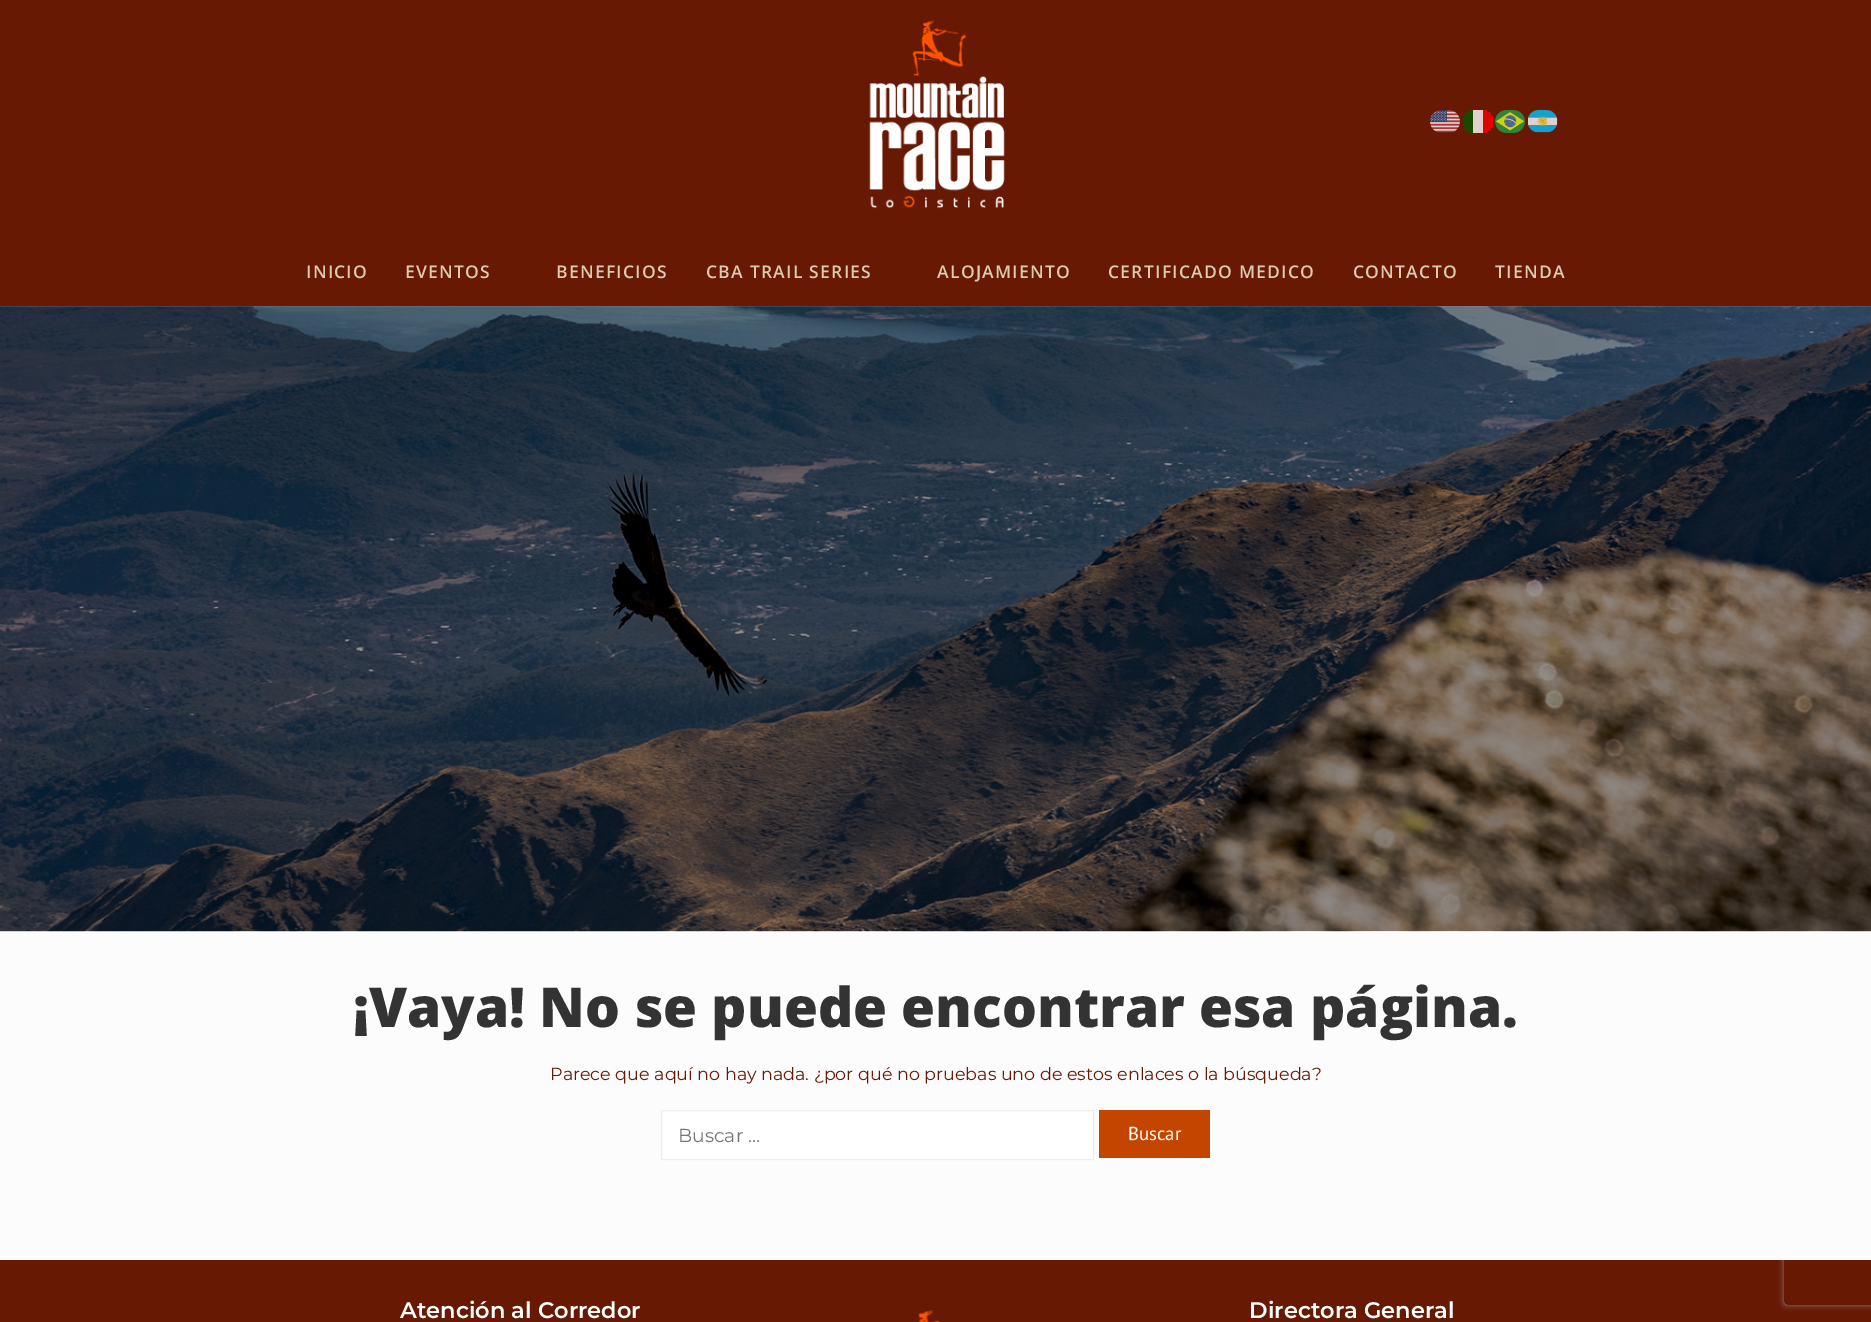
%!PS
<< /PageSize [1871 1322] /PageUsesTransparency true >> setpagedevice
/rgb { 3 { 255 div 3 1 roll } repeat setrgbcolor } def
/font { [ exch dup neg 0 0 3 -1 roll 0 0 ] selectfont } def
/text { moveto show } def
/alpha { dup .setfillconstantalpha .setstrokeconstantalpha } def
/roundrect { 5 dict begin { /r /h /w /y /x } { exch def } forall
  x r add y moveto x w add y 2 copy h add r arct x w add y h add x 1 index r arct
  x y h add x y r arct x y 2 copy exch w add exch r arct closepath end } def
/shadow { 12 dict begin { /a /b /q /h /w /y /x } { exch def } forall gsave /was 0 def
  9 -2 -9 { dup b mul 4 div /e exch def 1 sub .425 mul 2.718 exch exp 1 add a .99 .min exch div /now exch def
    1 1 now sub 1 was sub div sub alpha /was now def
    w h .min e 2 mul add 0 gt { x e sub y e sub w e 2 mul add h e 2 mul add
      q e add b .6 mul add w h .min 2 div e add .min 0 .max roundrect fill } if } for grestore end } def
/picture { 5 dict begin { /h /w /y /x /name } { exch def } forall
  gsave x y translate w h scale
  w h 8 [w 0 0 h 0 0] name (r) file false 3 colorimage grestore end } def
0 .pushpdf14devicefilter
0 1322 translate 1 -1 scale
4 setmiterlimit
103 25 3 rgb
0 0 1871 1322 rectfill
(img_01.rgb) 869 20 136 189 picture
(img_02.rgb) 1430 110 30 23 picture
225 209 205 rgb
1463 110 30 23 11.5 roundrect fill
gsave
1463 110 30 23 11.5 roundrect clip newpath
21 75 1 rgb
1463 110 10 23 rectfill
222 5 1 rgb
1483 110 10 23 rectfill
grestore
(img_03.rgb) 1495 110 30 23 picture
(img_04.rgb) 1528 110 30 23 picture
gsave
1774 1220 moveto 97 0 rlineto 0 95 rlineto -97 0 rlineto closepath 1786.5 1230 moveto 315 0 rlineto 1.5 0 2.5 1 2.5 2.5 rcurveto 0 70 rlineto 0 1.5 -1 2.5 -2.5 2.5 rcurveto -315 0 rlineto -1.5 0 -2.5 -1 -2.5 -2.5 rcurveto 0 -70 rlineto 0 -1.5 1 -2.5 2.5 -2.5 rcurveto closepath eoclip newpath
128 128 128 rgb
1784 1230 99 75 2.5 3 1 shadow
grestore
252 252 252 rgb
0 306 1871 954 rectfill
(img_05.rgb) 0 306 1871 626 picture
255 255 255 rgb
661.5 1110.5 moveto 432 0 rlineto 0 49 rlineto -432 0 rlineto closepath gsave fill grestore
238 238 238 rgb
stroke
196 69 0 rgb
1099 1110 111 48 rectfill
(img_06.rgb) 918 1310 22 12 picture
/OpenSans-SemiBold 17.5 font
219 203 178 rgb
306 278 moveto 1.25 0 (INICIO) ashow
405 278 moveto 1.25 0 (EVENTOS) ashow
556 278 moveto 1.25 0 (BENEFICIOS) ashow
706 278 moveto 1.25 0 (CBA TRAIL SERIES) ashow
937 278 moveto 1.25 0 (ALOJAMIENTO) ashow
1108 278 moveto 1.25 0 (CERTIFICADO MEDICO) ashow
1353 278 moveto 1.25 0 (CONTACTO) ashow
1495 278 moveto 1.25 0 (TIENDA) ashow
/OpenSans-ExtraBold 55 font
51 51 51 rgb
(¡Vaya! No se puede encontrar esa página.) 353 1027 text
/Montserrat-Regular 17.5 font
103 25 3 rgb
(Parece que aquí no hay nada. ¿por qué no pruebas uno de estos enlaces o la búsqueda?) 550 1080 text
/Montserrat-Regular 18.75 font
117 117 117 rgb
(Buscar …) 678 1142 text
/PTSans-Regular 18.75 font
255 255 255 rgb
(Buscar) 1128 1140 text
/Montserrat-SemiBold 22.5 font
(Atención al Corredor) 400 1318 text
(Directora General) 1249 1318 text
.poppdf14devicefilter showpage
